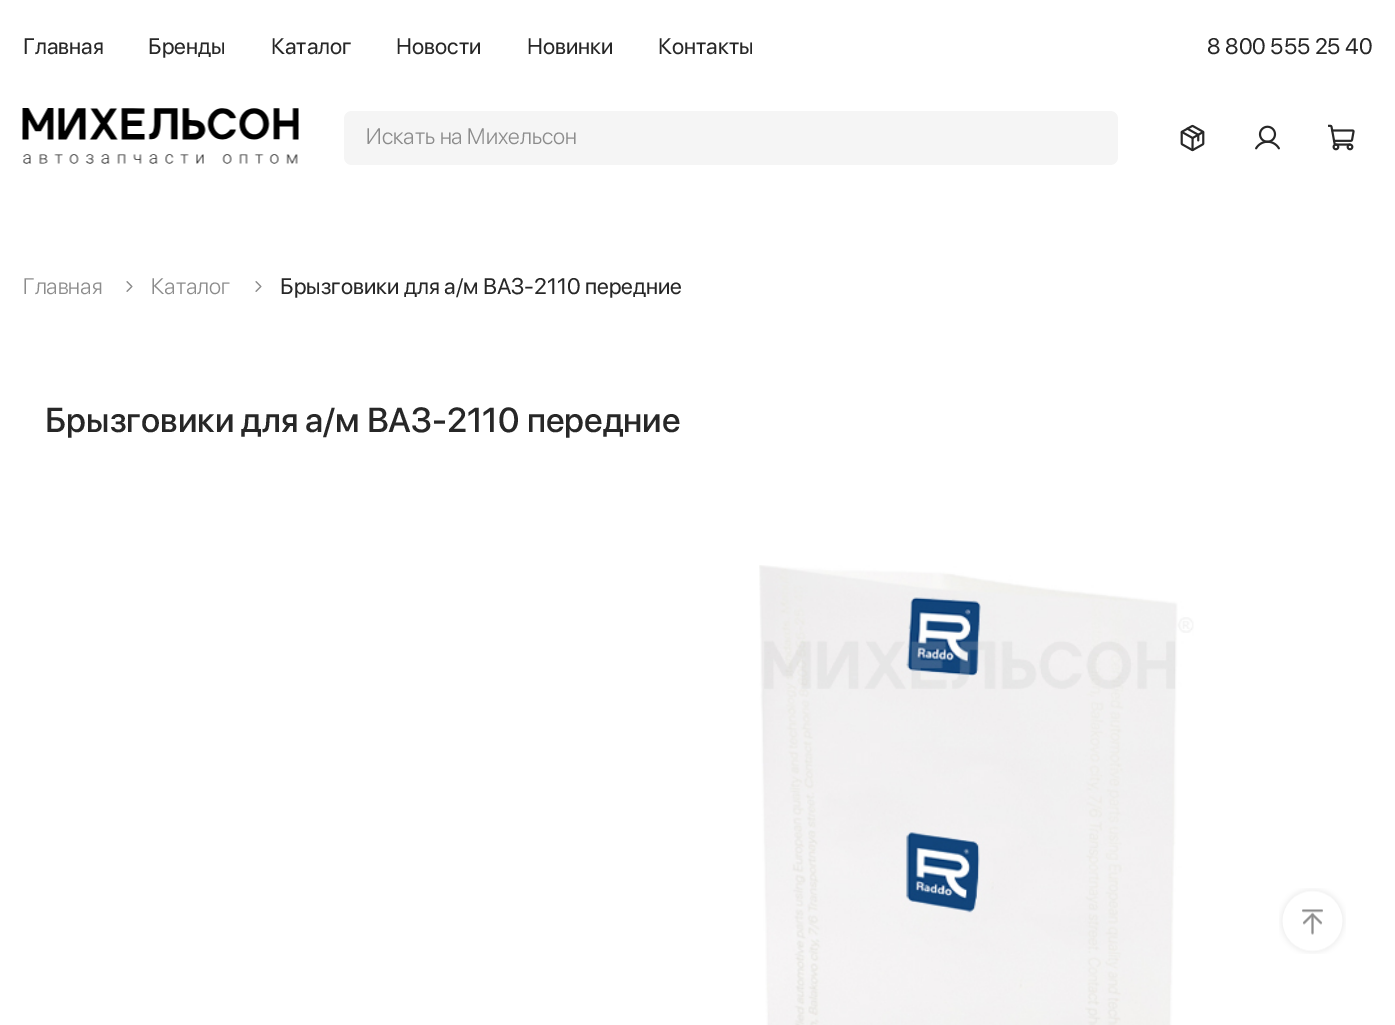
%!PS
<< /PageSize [1395 1025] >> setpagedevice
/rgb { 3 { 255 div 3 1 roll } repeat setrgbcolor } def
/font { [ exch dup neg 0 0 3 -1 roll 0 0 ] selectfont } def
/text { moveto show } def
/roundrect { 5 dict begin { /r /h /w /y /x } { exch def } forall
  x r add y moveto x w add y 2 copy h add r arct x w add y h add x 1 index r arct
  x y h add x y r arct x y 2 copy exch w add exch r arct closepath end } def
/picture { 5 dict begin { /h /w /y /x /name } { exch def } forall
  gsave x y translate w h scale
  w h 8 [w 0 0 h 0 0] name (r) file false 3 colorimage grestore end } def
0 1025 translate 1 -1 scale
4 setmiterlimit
255 255 255 rgb
0 0 1395 1025 rectfill
(img_01.rgb) 22 108 277 56 picture
245 245 245 rgb
344 111 774 54 8 roundrect fill
(img_02.rgb) 1180 124 25 28 picture
(img_03.rgb) 1255 125 25 25 picture
(img_04.rgb) 1328 124 27 27 picture
(img_05.rgb) 126 281 7 11 picture
(img_05.rgb) 255 281 7 11 picture
(img_06.rgb) 759 565 435 460 picture
(img_07.rgb) 1279 888 67 66 picture
/SFProDisplay-Regular 22.5 font
39 39 39 rgb
(Главная) 23 54 text
(Бренды) 148 54 text
(Каталог) 271 54 text
(Новости) 396 54 text
(Новинки) 527 54 text
(Контакты) 658 54 text
(8 800 555 25 40) 1207 54 text
/SFProDisplay-Light 22.5 font
140 140 140 rgb
(Искать на Михельсон) 366 144 text
(Главная) 23 294 text
(Каталог) 151 294 text
/SFProDisplay-Regular 22.5 font
39 39 39 rgb
(Брызговики для а/м ВАЗ-2110 передние) 280 294 text
/SFProDisplay-Medium 34.5 font
(Брызговики для а/м ВАЗ-2110 передние) 45 432 text
showpage
